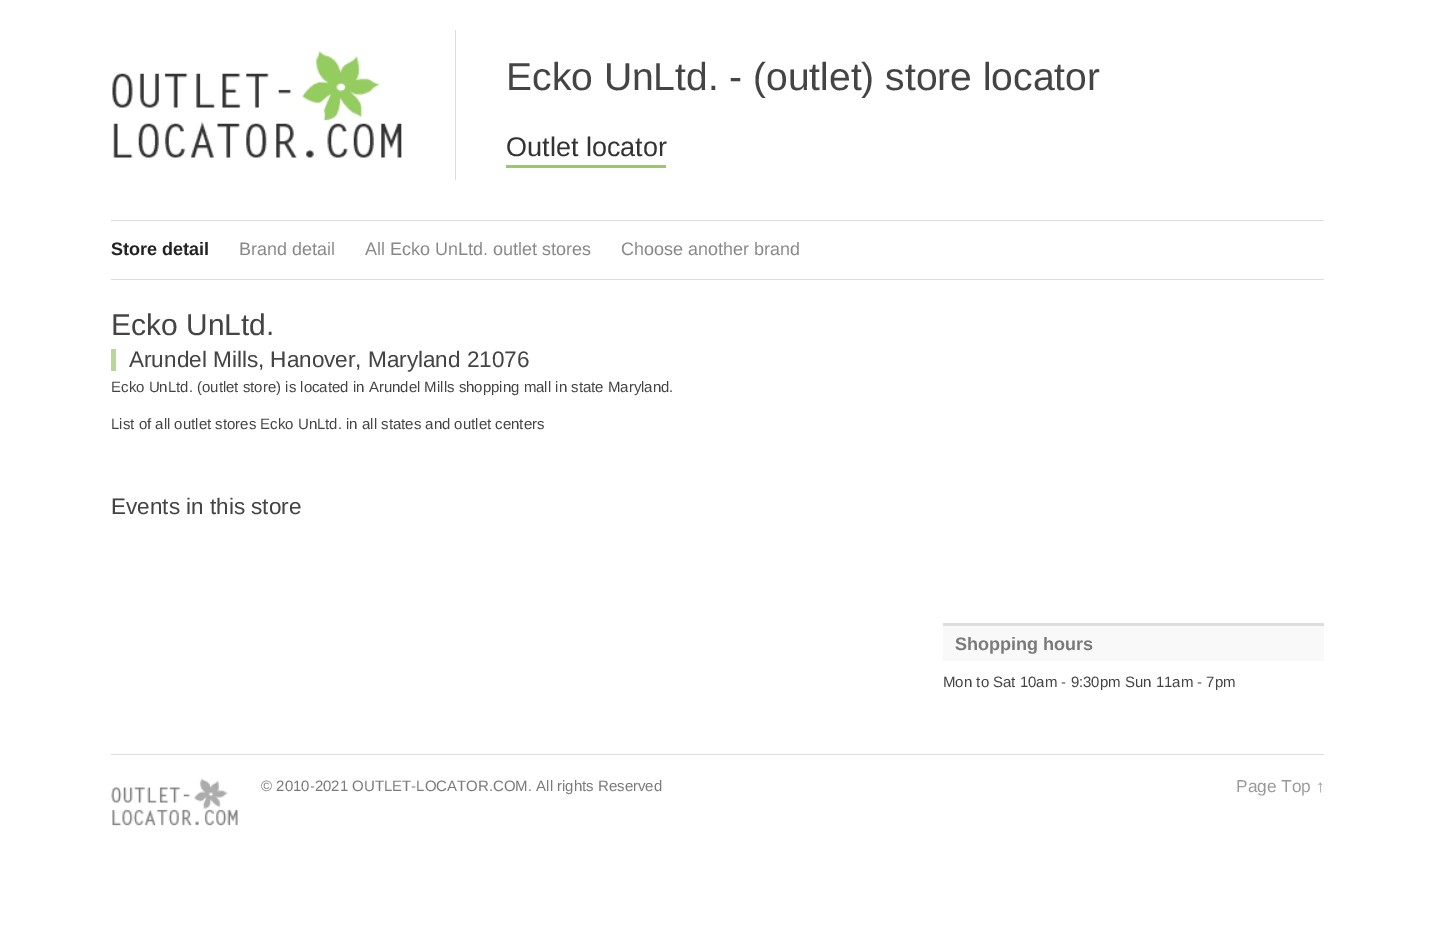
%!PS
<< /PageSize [1435 925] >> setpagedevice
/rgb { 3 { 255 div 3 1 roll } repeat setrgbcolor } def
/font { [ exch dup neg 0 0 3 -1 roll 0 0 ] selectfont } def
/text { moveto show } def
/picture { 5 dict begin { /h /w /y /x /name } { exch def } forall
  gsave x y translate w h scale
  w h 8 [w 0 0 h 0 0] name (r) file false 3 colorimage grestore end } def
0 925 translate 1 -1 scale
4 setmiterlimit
255 255 255 rgb
0 0 1435 925 rectfill
221 221 221 rgb
111 220 1213 1 rectfill
455 30 1 150 rectfill
(img_01.rgb) 112 51 290 107 picture
148 204 95 rgb
506 165 160 3 rectfill
221 221 221 rgb
111 279 1213 1 rectfill
183 216 151 rgb
111 349 5 22 rectfill
249 249 249 rgb
943 626 381 35 rectfill
221 221 221 rgb
943 623 381 3 rectfill
111 754 1213 1 rectfill
(img_02.rgb) 111 778 127 48 picture
/LiberationSans-Regular 39 font
68 68 68 rgb
(Ecko UnLtd. - \(outlet\) store locator) 506 90 text
/LiberationSans-Regular 27 font
51 51 51 rgb
(Outlet locator) 506 156 text
/LiberationSans-Bold 18 font
34 34 34 rgb
(Store detail) 111 255 text
/LiberationSans-Regular 18 font
136 136 136 rgb
(Brand detail) 239 255 text
(All Ecko UnLtd. outlet stores) 365 255 text
(Choose another brand) 621 255 text
/LiberationSans-Regular 30 font
68 68 68 rgb
(Ecko UnLtd.) 111 335 text
/LiberationSans-Regular 22.5 font
(Arundel Mills, Hanover, Maryland 21076) 129 367 text
/LiberationSans-Regular 15 font
(Ecko UnLtd. \(outlet store\) is located in Arundel Mills shopping mall in state Maryland.) 111 392 text
(List of all outlet stores Ecko UnLtd. in all states and outlet centers) 111 429 text
/LiberationSans-Regular 22.5 font
(Events in this store) 111 514 text
/LiberationSans-Bold 18 font
122 122 122 rgb
(Shopping hours) 955 650 text
/LiberationSans-Regular 15 font
68 68 68 rgb
(Mon to Sat 10am - 9:30pm Sun 11am - 7pm) 943 687 text
122 122 122 rgb
(© 2010-2021 OUTLET-LOCATOR.COM. All rights Reserved) 261 791 text
/LiberationSans-Regular 17.25 font
153 153 153 rgb
(Page Top ↑) 1236 792 text
showpage
